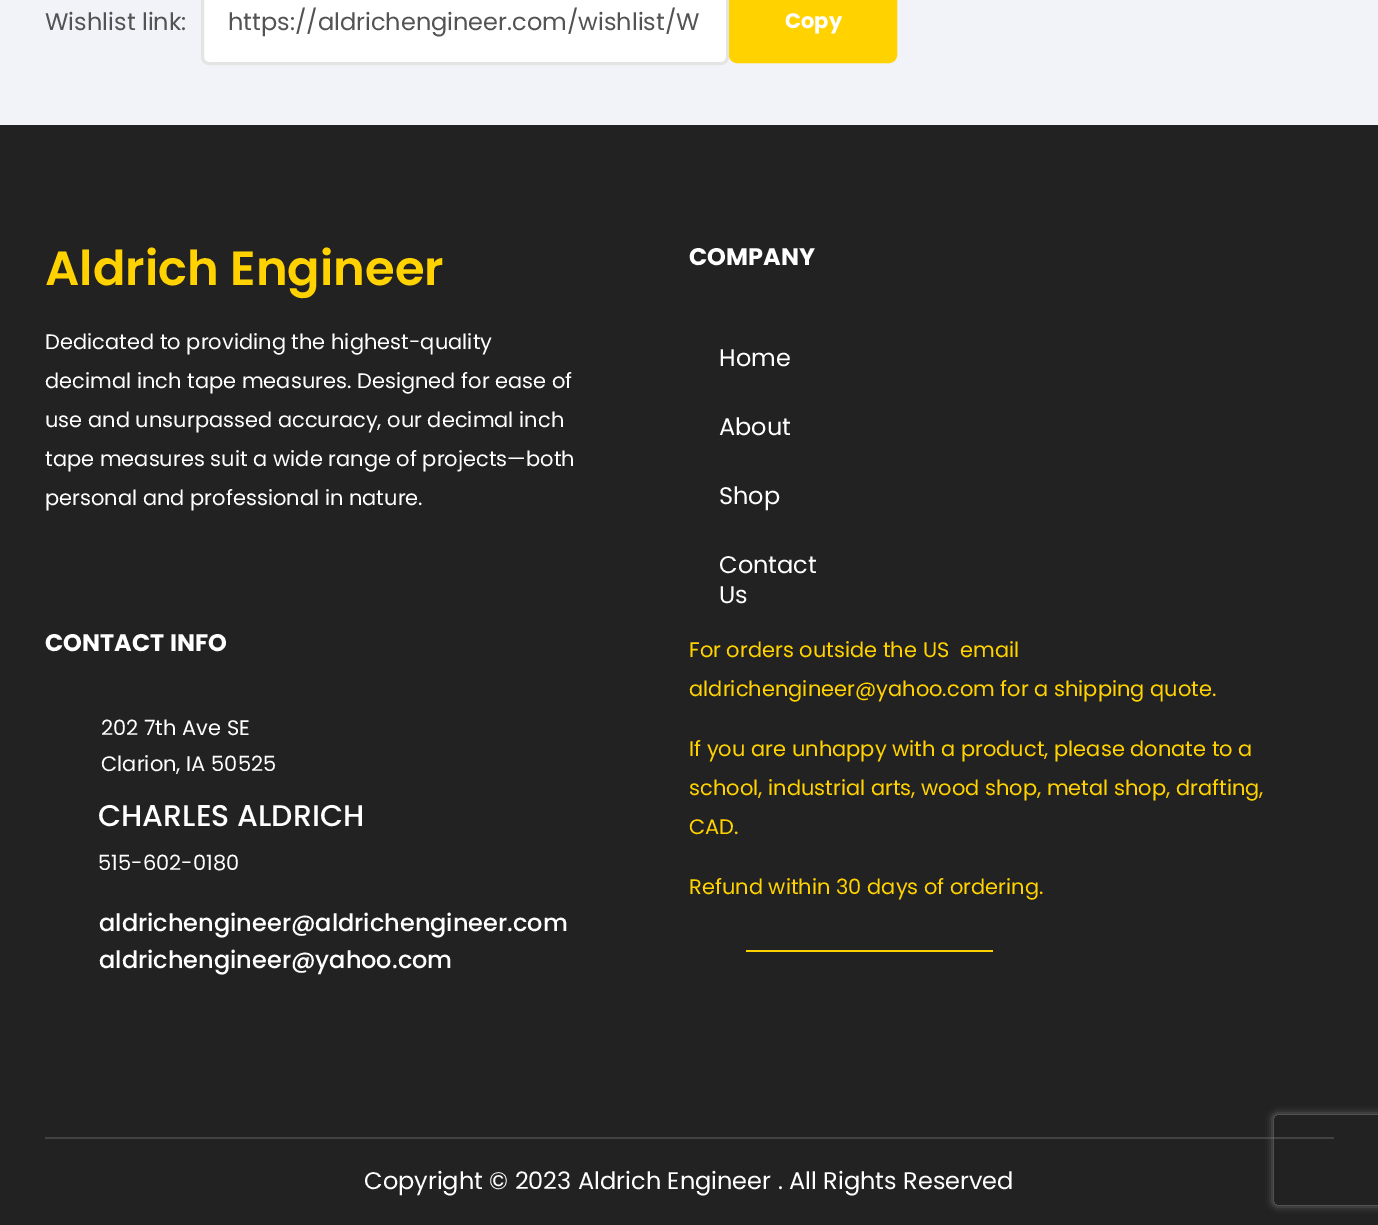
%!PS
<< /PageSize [1378 1225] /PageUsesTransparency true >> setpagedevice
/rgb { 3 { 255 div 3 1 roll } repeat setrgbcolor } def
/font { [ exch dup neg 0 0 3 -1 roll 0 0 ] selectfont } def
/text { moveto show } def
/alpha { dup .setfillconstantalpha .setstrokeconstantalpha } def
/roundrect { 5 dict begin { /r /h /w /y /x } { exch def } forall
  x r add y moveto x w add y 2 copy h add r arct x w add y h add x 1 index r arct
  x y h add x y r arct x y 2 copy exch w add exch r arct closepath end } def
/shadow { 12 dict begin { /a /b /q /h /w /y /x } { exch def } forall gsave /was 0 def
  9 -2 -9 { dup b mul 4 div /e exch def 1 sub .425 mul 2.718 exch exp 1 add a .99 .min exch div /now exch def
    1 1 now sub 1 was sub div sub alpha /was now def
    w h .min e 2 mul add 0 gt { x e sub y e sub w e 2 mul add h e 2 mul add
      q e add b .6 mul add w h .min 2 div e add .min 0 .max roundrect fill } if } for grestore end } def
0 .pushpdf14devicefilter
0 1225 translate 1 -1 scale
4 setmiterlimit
242 243 248 rgb
0 0 1378 1225 rectfill
255 255 255 rgb
202.5 -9.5 525 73 6.5 roundrect gsave fill grestore
228 228 228 rgb
3 setlinewidth
stroke
255 210 0 rgb
730.5 -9.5 165 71 6.5 roundrect gsave fill grestore
stroke
34 34 34 rgb
0 125 1378 1100 rectfill
255 210 0 rgb
746 950 247 2 rectfill
66 66 66 rgb
45 1137 1289 2 rectfill
gsave
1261 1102 moveto 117 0 rlineto 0 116 rlineto -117 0 rlineto closepath 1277 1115 moveto 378 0 rlineto 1.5 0 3 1.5 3 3 rcurveto 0 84 rlineto 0 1.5 -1.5 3 -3 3 rcurveto -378 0 rlineto -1.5 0 -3 -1.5 -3 -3 rcurveto 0 -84 rlineto 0 -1.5 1.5 -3 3 -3 rcurveto closepath eoclip newpath
128 128 128 rgb
1274 1115 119 90 3 4 1 shadow
grestore
/Poppins-Regular 24 font
83 83 83 rgb
(Wishlist link:) 45 30 text
(https://aldrichengineer.com/wishlist/W) 228 30 text
/Poppins-Bold 21 font
255 255 255 rgb
(Copy) 785 28 text
/Poppins-SemiBold 48 font
255 210 0 rgb
(Aldrich Engineer) 45 285 text
/Poppins-Regular 21 font
255 255 255 rgb
(Dedicated to providing the highest-quality) 45 349 text
(decimal inch tape measures. Designed for ease of) 45 388 text
(use and unsurpassed accuracy, our decimal inch) 45 427 text
(tape measures suit a wide range of projects—both) 45 466 text
(personal and professional in nature.) 45 505 text
/Poppins-Bold 24 font
(COMPANY) 689 265 text
/Poppins-Regular 24 font
(Home) 719 366 text
(About) 719 435 text
(Shop) 719 504 text
(Contact) 719 573 text
(Us) 719 603 text
/Poppins-Bold 24 font
(CONTACT INFO) 45 651 text
/Poppins-Regular 21 font
(202 7th Ave SE) 101 735 text
(Clarion, IA 50525) 101 771 text
/Poppins-Medium 30 font
(CHARLES ALDRICH) 98 826 text
/Poppins-Regular 21 font
(515-602-0180) 98 870 text
/Poppins-Medium 24 font
(aldrichengineer@aldrichengineer.com) 99 931 text
(aldrichengineer@yahoo.com) 99 968 text
/Poppins-Regular 21 font
255 210 0 rgb
(For orders outside the US  email) 689 657 text
(aldrichengineer@yahoo.com for a shipping quote.) 689 696 text
(If you are unhappy with a product, please donate to a) 689 756 text
(school, industrial arts, wood shop, metal shop, drafting,) 689 795 text
(CAD.) 689 834 text
(Refund within 30 days of ordering.) 689 894 text
/Poppins-Regular 24 font
255 255 255 rgb
(Copyright © 2023 Aldrich Engineer . All Rights Reserved) 364 1189 text
.poppdf14devicefilter showpage
